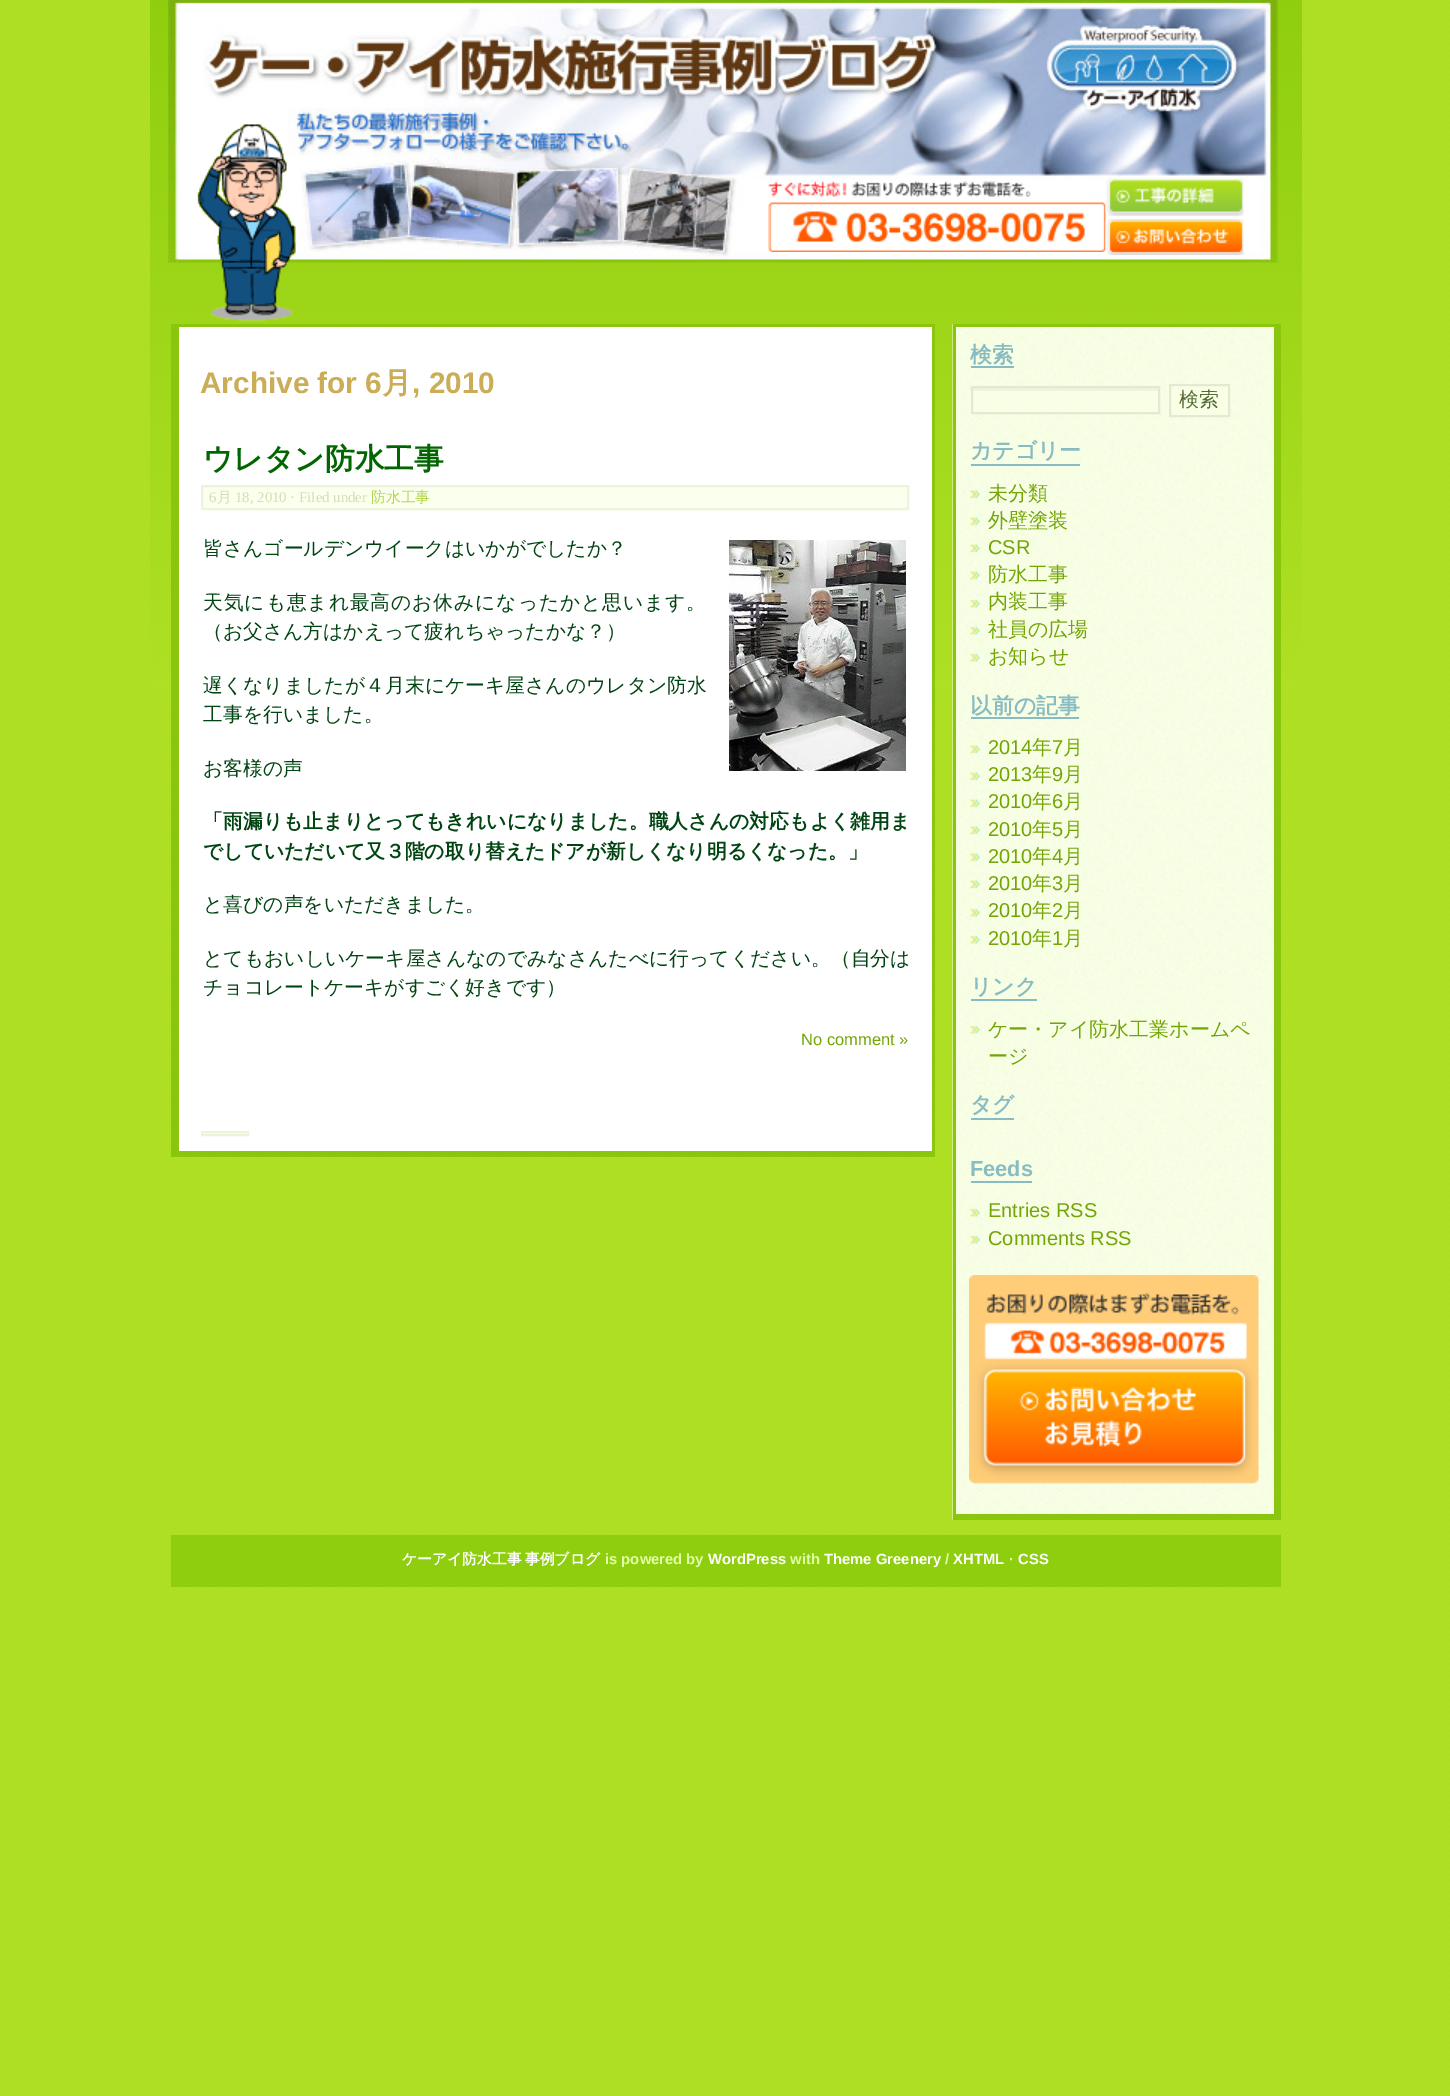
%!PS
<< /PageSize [1450 2096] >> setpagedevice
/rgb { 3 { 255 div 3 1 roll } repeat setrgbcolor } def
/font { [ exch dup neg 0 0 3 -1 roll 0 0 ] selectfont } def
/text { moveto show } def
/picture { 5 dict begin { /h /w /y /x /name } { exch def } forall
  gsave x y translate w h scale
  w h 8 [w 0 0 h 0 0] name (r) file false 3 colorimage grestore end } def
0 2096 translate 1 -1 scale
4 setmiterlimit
255 255 255 rgb
0 0 1450 2096 rectfill
(img_01.rgb) 0 0 1450 2096 picture
(img_02.rgb) 150 0 1152 690 picture
(img_03.rgb) 168 0 1110 263 picture
(img_04.rgb) 197 124 99 198 picture
(img_05.rgb) 768 181 338 71 picture
(img_06.rgb) 1105 178 139 38 picture
(img_07.rgb) 1105 219 139 36 picture
179 327 753 824 rectfill
138 198 14 rgb
171 324 764 3 rectfill
932 324 3 833 rectfill
171 1151 764 6 rectfill
171 324 8 833 rectfill
250 255 238 rgb
202 486 moveto 706 0 rlineto 0 23 rlineto -706 0 rlineto closepath gsave fill grestore
236 244 217 rgb
2 setlinewidth
stroke
(img_08.rgb) 729 540 177 231 picture
250 255 238 rgb
202 1132 moveto 46 0 rlineto 0 3 rlineto -46 0 rlineto closepath gsave fill grestore
236 244 217 rgb
stroke
(img_09.rgb) 952 324 322 1196 picture
138 198 14 rgb
953 324 328 3 rectfill
1274 324 7 1196 rectfill
953 1514 328 6 rectfill
953 324 3 1196 rectfill
137 188 194 rgb
971 366 43 2 rectfill
248 255 229 rgb
973 391 185 21 rectfill
239 244 224 rgb
970 387 190 4 rectfill
228 234 210 rgb
972 387 187 26 rectstroke
248 255 229 rgb
1170 385 moveto 59 0 rlineto 0 31 rlineto -59 0 rlineto closepath gsave fill grestore
228 234 210 rgb
stroke
137 188 194 rgb
971 464 109 2 rectfill
(img_10.rgb) 970 490 11 9 picture
(img_11.rgb) 970 517 11 9 picture
(img_12.rgb) 970 544 11 9 picture
(img_13.rgb) 970 571 11 9 picture
(img_14.rgb) 970 599 11 9 picture
(img_15.rgb) 970 626 11 9 picture
(img_16.rgb) 970 653 11 9 picture
971 717 108 2 rectfill
(img_17.rgb) 970 745 11 9 picture
(img_18.rgb) 970 772 11 9 picture
(img_19.rgb) 970 799 11 9 picture
(img_20.rgb) 970 826 11 9 picture
(img_21.rgb) 970 853 11 9 picture
(img_10.rgb) 970 880 11 9 picture
(img_22.rgb) 970 908 11 9 picture
(img_23.rgb) 970 935 11 9 picture
971 999 66 2 rectfill
(img_24.rgb) 970 1025 11 9 picture
971 1118 43 2 rectfill
971 1181 61 2 rectfill
(img_25.rgb) 970 1208 11 9 picture
(img_26.rgb) 970 1235 11 9 picture
(img_27.rgb) 969 1275 290 90 picture
(img_28.rgb) 969 1365 290 119 picture
143 206 14 rgb
171 1535 1110 52 rectfill
/LiberationSans-Bold 29.75 font
203 173 87 rgb
(Archive for 6) 200 393 text
/WenQuanYiZenHei-Bold 29.75 font
(月) 382 393 text
/LiberationSans-Bold 29.75 font
(, 2010) 412 393 text
/WenQuanYiZenHei-Bold 29.75 font
0 102 0 rgb
(ウレタン防水工事) 203 469 text
/LiberationSerif-Regular 14.8 font
211 222 180 rgb
(6) 209 502 text
/WenQuanYiZenHei-Medium 14.8 font
(月) 217 502 text
/LiberationSerif-Regular 14.8 font
(18, 2010 · Filed under) 235 502 text
/WenQuanYiZenHei-Medium 14.8 font
179 214 79 rgb
(防水工事) 371 502 text
/WenQuanYiZenHei-Medium 19.8 font
0 68 18 rgb
(皆さんゴールデンウイークはいかがでしたか？) 203 555 text
203 609 moveto 0.9 0 (天気にも恵まれ最高のお休みになったかと思います。) ashow
(（お父さん方はかえって疲れちゃったかな？）) 203 638 text
203 692 moveto 0.05 0 (遅くなりましたが４月末にケーキ屋さんのウレタン防水) ashow
(工事を行いました。) 203 721 text
(お客様の声) 203 775 text
/WenQuanYiZenHei-Bold 19.8 font
203 828 moveto 0.1 0 (「雨漏りも止まりとってもきれいになりました。職人さんの対応もよく雑用ま) ashow
(でしていただいて又３階の取り替えたドアが新しくなり明るくなった。」) 203 858 text
/WenQuanYiZenHei-Medium 19.8 font
(と喜びの声をいただきました。) 203 911 text
203 965 moveto 0.05 0 (とてもおいしいケーキ屋さんなのでみなさんたべに行ってください。（自分は) ashow
(チョコレートケーキがすごく好きです）) 203 994 text
/LiberationSans-Regular 16.5 font
116 165 7 rgb
(No comment ») 801 1045 text
/WenQuanYiZenHei-Bold 21.75 font
137 188 194 rgb
(検索) 970 362 text
/WenQuanYiZenHei-Medium 20 font
85 107 56 rgb
(検索) 1179 406 text
/WenQuanYiZenHei-Bold 21.75 font
137 188 194 rgb
(カテゴリー) 970 458 text
/WenQuanYiZenHei-Medium 20 font
116 165 7 rgb
(未分類) 988 500 text
(外壁塗装) 988 527 text
/LiberationSans-Regular 20 font
(CSR) 988 554 text
/WenQuanYiZenHei-Medium 20 font
(防水工事) 988 581 text
(内装工事) 988 608 text
(社員の広場) 988 636 text
(お知らせ) 988 663 text
/WenQuanYiZenHei-Bold 21.75 font
137 188 194 rgb
(以前の記事) 970 713 text
/LiberationSans-Regular 20 font
116 165 7 rgb
(2014) 988 754 text
/WenQuanYiZenHei-Medium 20 font
(年) 1032 754 text
/LiberationSans-Regular 20 font
(7) 1052 754 text
/WenQuanYiZenHei-Medium 20 font
(月) 1063 754 text
/LiberationSans-Regular 20 font
(2013) 988 781 text
/WenQuanYiZenHei-Medium 20 font
(年) 1032 781 text
/LiberationSans-Regular 20 font
(9) 1052 781 text
/WenQuanYiZenHei-Medium 20 font
(月) 1063 781 text
/LiberationSans-Regular 20 font
(2010) 988 808 text
/WenQuanYiZenHei-Medium 20 font
(年) 1032 808 text
/LiberationSans-Regular 20 font
(6) 1052 808 text
/WenQuanYiZenHei-Medium 20 font
(月) 1063 808 text
/LiberationSans-Regular 20 font
(2010) 988 836 text
/WenQuanYiZenHei-Medium 20 font
(年) 1032 836 text
/LiberationSans-Regular 20 font
(5) 1052 836 text
/WenQuanYiZenHei-Medium 20 font
(月) 1063 836 text
/LiberationSans-Regular 20 font
(2010) 988 863 text
/WenQuanYiZenHei-Medium 20 font
(年) 1032 863 text
/LiberationSans-Regular 20 font
(4) 1052 863 text
/WenQuanYiZenHei-Medium 20 font
(月) 1063 863 text
/LiberationSans-Regular 20 font
(2010) 988 890 text
/WenQuanYiZenHei-Medium 20 font
(年) 1032 890 text
/LiberationSans-Regular 20 font
(3) 1052 890 text
/WenQuanYiZenHei-Medium 20 font
(月) 1063 890 text
/LiberationSans-Regular 20 font
(2010) 988 917 text
/WenQuanYiZenHei-Medium 20 font
(年) 1032 917 text
/LiberationSans-Regular 20 font
(2) 1052 917 text
/WenQuanYiZenHei-Medium 20 font
(月) 1063 917 text
/LiberationSans-Regular 20 font
(2010) 988 945 text
/WenQuanYiZenHei-Medium 20 font
(年) 1032 945 text
/LiberationSans-Regular 20 font
(1) 1052 945 text
/WenQuanYiZenHei-Medium 20 font
(月) 1063 945 text
/WenQuanYiZenHei-Bold 21.75 font
137 188 194 rgb
(リンク) 970 994 text
/WenQuanYiZenHei-Medium 20 font
116 165 7 rgb
(ケー・アイ防水工業ホームペ) 988 1036 text
(ージ) 988 1063 text
/WenQuanYiZenHei-Bold 21.75 font
137 188 194 rgb
(タグ) 970 1112 text
/LiberationSans-Bold 21.75 font
(Feeds) 970 1176 text
/LiberationSans-Regular 20 font
116 165 7 rgb
(Entries RSS) 988 1217 text
(Comments RSS) 988 1245 text
/WenQuanYiZenHei-Bold 14.8 font
255 255 255 rgb
402 1564 moveto -1 0 32 (ケーアイ防水工事 事例ブログ) widthshow
/LiberationSans-Bold 14.8 font
226 255 168 rgb
(is powered by) 605 1564 text
255 255 255 rgb
(WordPress) 708 1564 text
226 255 168 rgb
(with) 790 1564 text
255 255 255 rgb
(Theme Greenery) 824 1564 text
226 255 168 rgb
(/) 945 1564 text
255 255 255 rgb
(XHTML) 953 1564 text
226 255 168 rgb
(·) 1009 1564 text
255 255 255 rgb
(CSS) 1018 1564 text
showpage
